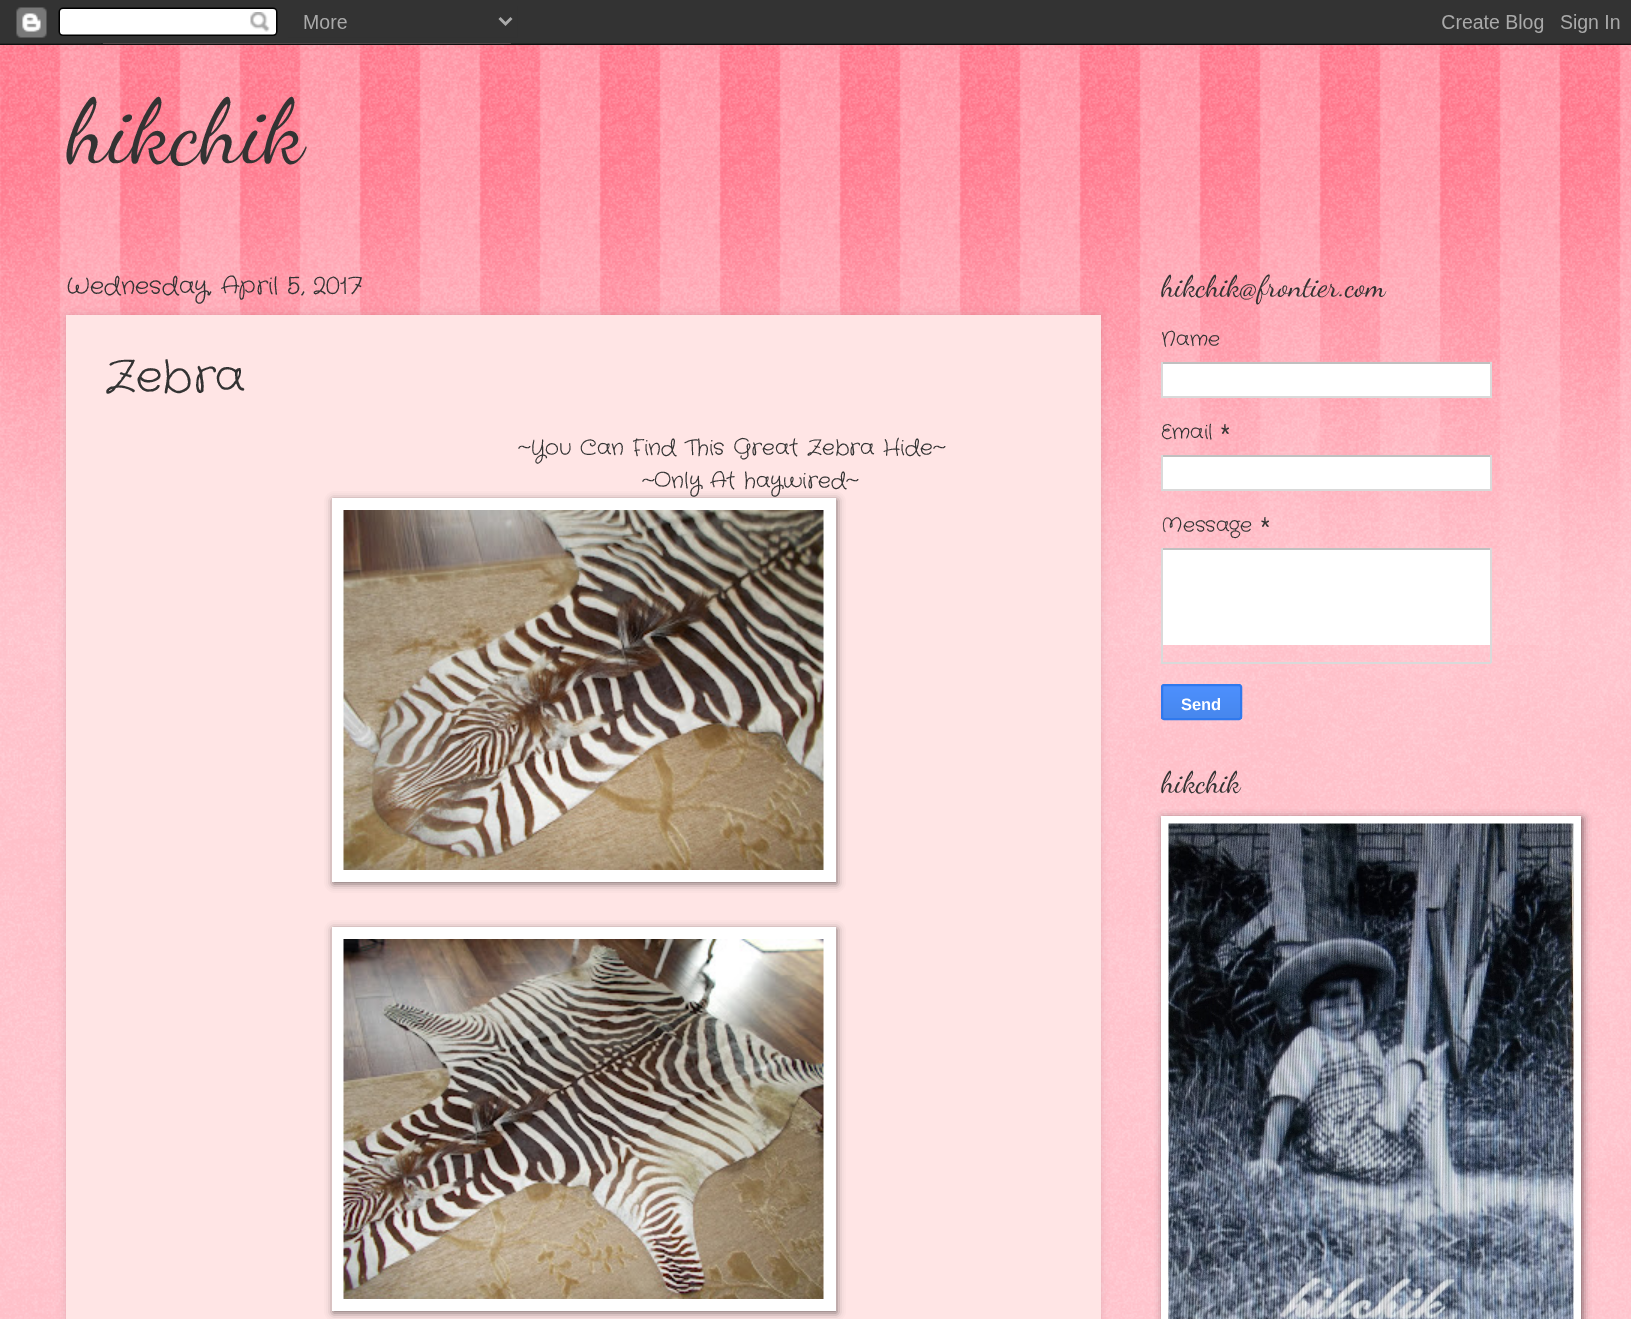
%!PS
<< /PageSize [1631 1319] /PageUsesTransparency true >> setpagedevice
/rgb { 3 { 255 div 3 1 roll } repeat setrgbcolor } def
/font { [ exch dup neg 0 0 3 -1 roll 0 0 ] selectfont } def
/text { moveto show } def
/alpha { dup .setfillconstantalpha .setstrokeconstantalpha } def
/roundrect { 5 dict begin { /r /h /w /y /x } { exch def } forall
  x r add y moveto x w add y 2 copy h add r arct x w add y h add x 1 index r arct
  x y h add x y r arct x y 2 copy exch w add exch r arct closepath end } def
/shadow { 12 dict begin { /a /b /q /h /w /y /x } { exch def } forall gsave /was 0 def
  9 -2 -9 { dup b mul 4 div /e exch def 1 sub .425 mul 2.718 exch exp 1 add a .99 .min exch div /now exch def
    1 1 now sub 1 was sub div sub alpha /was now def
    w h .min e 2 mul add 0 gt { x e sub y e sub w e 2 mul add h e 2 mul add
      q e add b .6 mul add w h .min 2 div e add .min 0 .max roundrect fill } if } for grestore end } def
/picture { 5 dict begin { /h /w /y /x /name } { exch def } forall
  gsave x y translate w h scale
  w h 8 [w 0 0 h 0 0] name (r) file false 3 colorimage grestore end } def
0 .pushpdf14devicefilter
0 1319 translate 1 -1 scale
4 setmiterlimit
255 255 255 rgb
0 0 1631 1319 rectfill
(img_01.rgb) 0 43 1631 1276 picture
(img_02.rgb) 0 0 1631 45 picture
255 18 54 rgb
0 45 1631 600 rectfill
(img_03.rgb) 0 45 1631 600 picture
0 0 0 rgb
66 315 1035 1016 0 4 0.1 shadow
255 229 229 rgb
66 315 1035 1004 rectfill
0 0 0 rgb
333 500 504 384 0 4 0.5 shadow
255 255 255 rgb
332 498 504 384 rectfill
(img_04.rgb) 343 510 481 360 picture
0 0 0 rgb
333 929 504 384 0 4 0.5 shadow
255 255 255 rgb
332 927 504 384 rectfill
(img_05.rgb) 343 939 481 360 picture
1163 364 327 32 rectfill
192 192 192 rgb
1161 362 330 2 rectfill
217 217 217 rgb
1490 362 2 36 rectfill
1161 396 330 2 rectfill
1161 362 2 36 rectfill
255 255 255 rgb
1163 457 327 32 rectfill
192 192 192 rgb
1161 455 330 2 rectfill
217 217 217 rgb
1490 455 2 36 rectfill
1161 489 330 2 rectfill
1161 455 2 36 rectfill
255 255 255 rgb
1163 550 327 95 rectfill
192 192 192 rgb
1161 548 330 2 rectfill
217 217 217 rgb
1490 548 2 115 rectfill
1161 662 330 2 rectfill
1161 548 2 115 rectfill
gsave
1161 684 81 36 3 roundrect clip newpath
gsave 1161 686 moveto 81 0 rlineto 0 33 rlineto -81 0 rlineto closepath clip newpath
<< /ShadingType 2 /ColorSpace /DeviceRGB /Coords [1202 686 1202 719] /Extend [true true] /Function << /FunctionType 2 /Domain [0 1] /C0 [0.302 0.565 0.996] /C1 [0.278 0.529 0.929] /N 1 >> >> shfill grestore
grestore
48 121 237 rgb
2 setlinewidth
1162 685 79 34 2 roundrect stroke
0 0 0 rgb
1163 818 420 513 0 4 0.5 shadow
255 255 255 rgb
1161 816 420 503 rectfill
(img_06.rgb) 1168 823 406 496 picture
/DancingScript-Regular 90 font
51 51 51 rgb
(hikchik) 66 161 text
/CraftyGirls-Regular 24 font
(Wednesday, April 5, 2017) 66 293 text
/CraftyGirls-Regular 45 font
(Zebra) 105 390 text
/CraftyGirls-Regular 21.75 font
(~You Can Find This Great Zebra Hide~) 518 454 text
(~Only At haywired~) 642 487 text
/DancingScript-Regular 30 font
(hikchik@frontier.com) 1161 296 text
/CraftyGirls-Regular 20.5 font
(Name) 1161 345 text
(Email) 1161 438 text
/CraftyGirls-Bold 20.5 font
(*) 1221 438 text
/CraftyGirls-Regular 20.5 font
(Message) 1161 531 text
/CraftyGirls-Bold 20.5 font
(*) 1261 531 text
/LiberationSans-Bold 16.5 font
255 255 255 rgb
(Send) 1181 710 text
/DancingScript-Regular 30 font
51 51 51 rgb
(hikchik) 1161 792 text
.poppdf14devicefilter showpage
